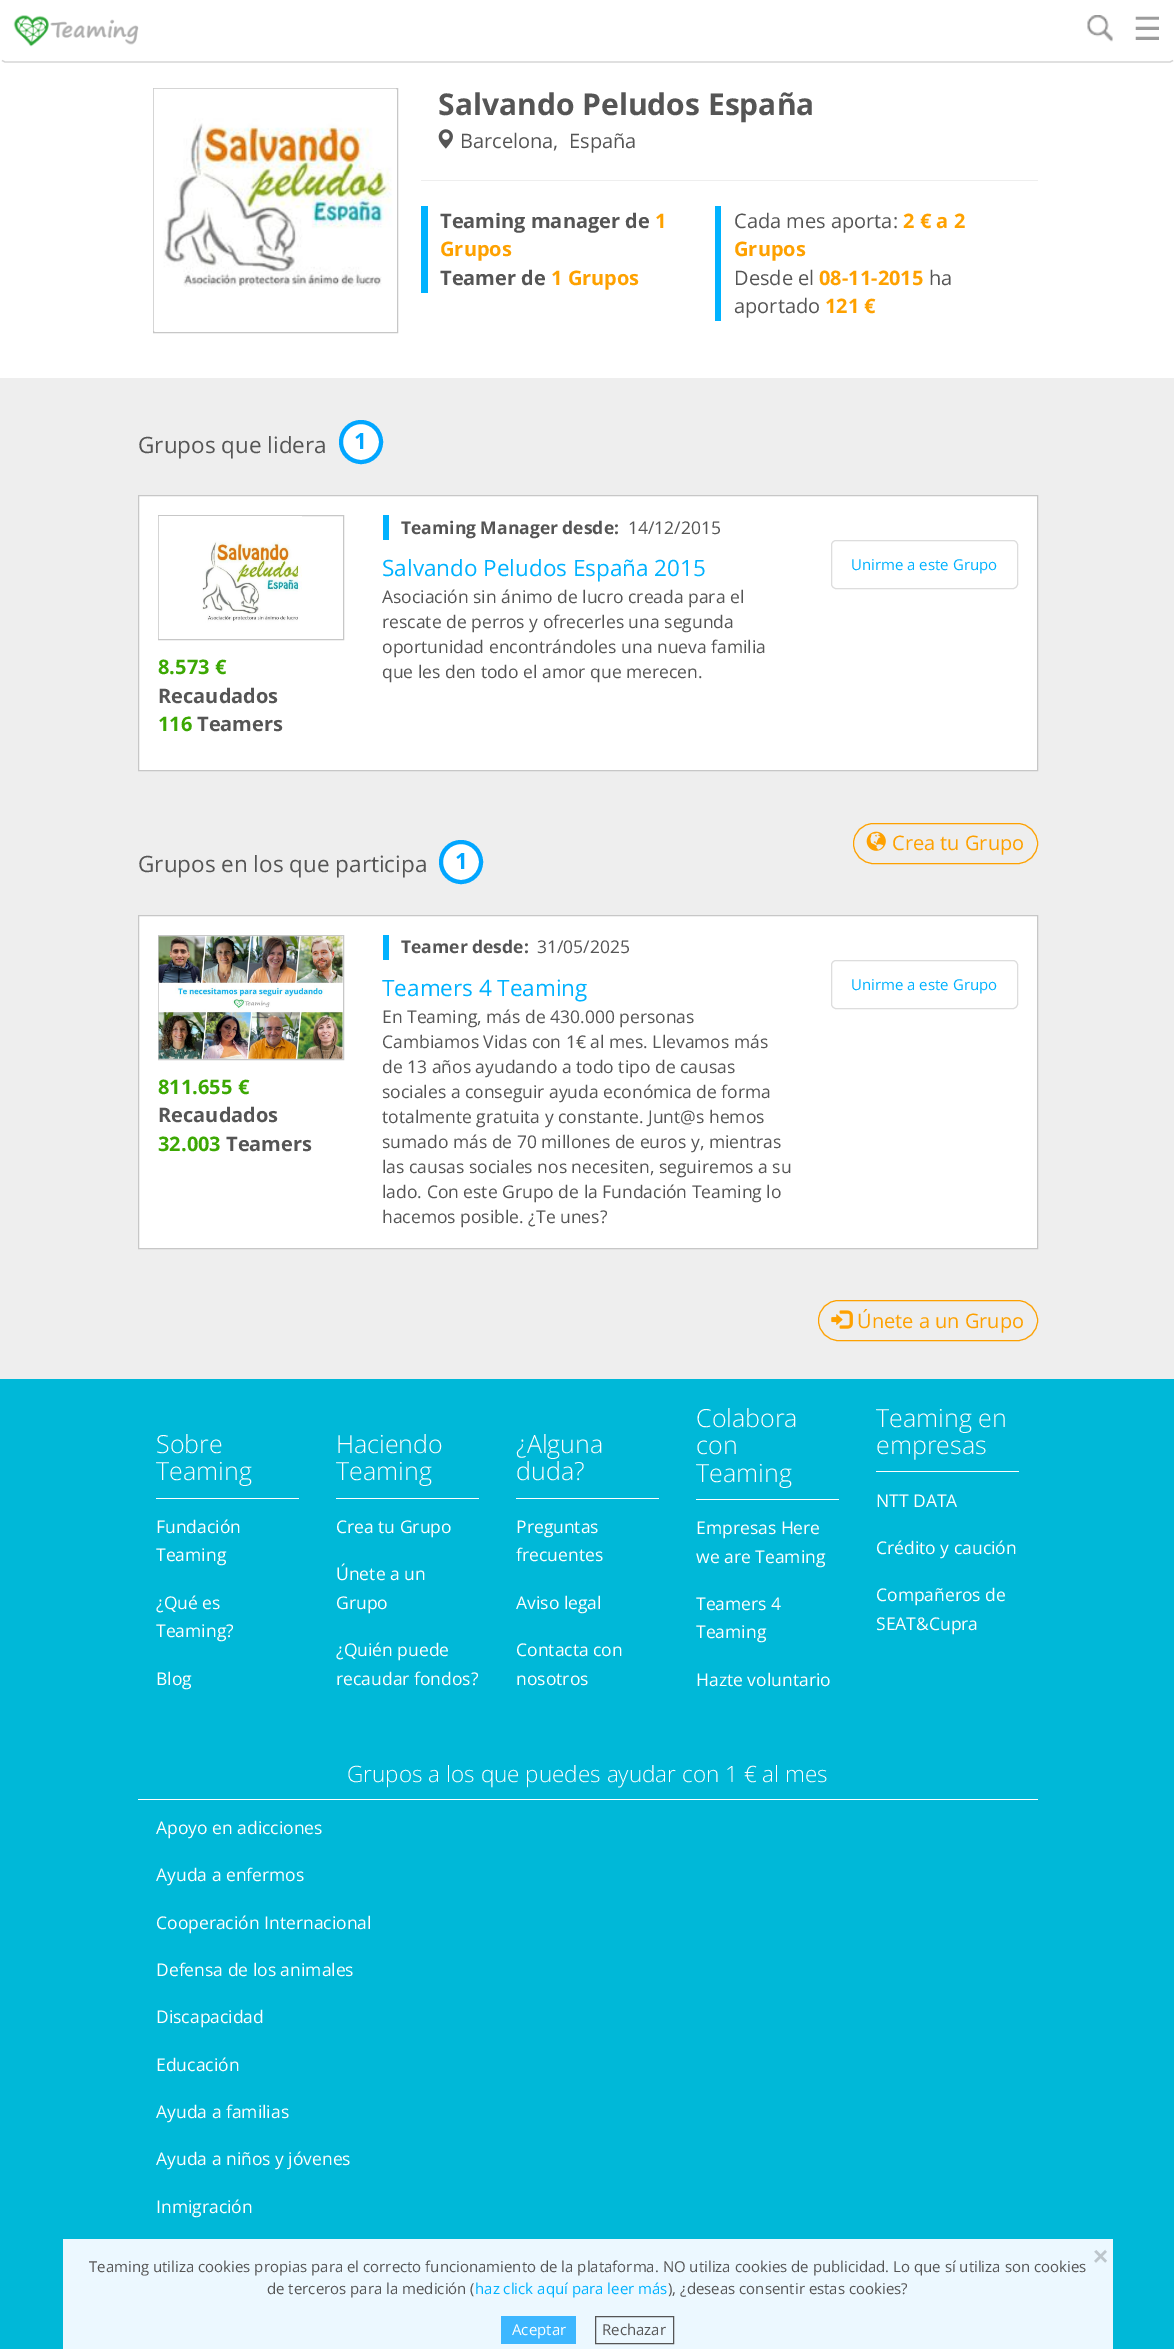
%!PS
<< /PageSize [1174 2349] >> setpagedevice
/rgb { 3 { 255 div 3 1 roll } repeat setrgbcolor } def
/font { [ exch dup neg 0 0 3 -1 roll 0 0 ] selectfont } def
/text { moveto show } def
/circle { newpath 0 360 arc closepath } def
/roundrect { 5 dict begin { /r /h /w /y /x } { exch def } forall
  x r add y moveto x w add y 2 copy h add r arct x w add y h add x 1 index r arct
  x y h add x y r arct x y 2 copy exch w add exch r arct closepath end } def
/picture { 5 dict begin { /h /w /y /x /name } { exch def } forall
  gsave x y translate w h scale
  w h 8 [w 0 0 h 0 0] name (r) file false 3 colorimage grestore end } def
0 2349 translate 1 -1 scale
4 setmiterlimit
255 255 255 rgb
0 0 1174 2349 rectfill
213 213 213 rgb
1.2 setlinewidth
1173 60.5 moveto -3 1.5 rlineto -1165 0 rlineto -3 -1.5 rlineto stroke
(img_01.rgb) 13 15 126 32 picture
(img_02.rgb) 1087 15 26 27 picture
199 199 199 rgb
1 setlinewidth
153.5 88.5 244 244 rectstroke
(img_03.rgb) 153 88 243 243 picture
(img_04.rgb) 438 129 15 20 picture
238 238 238 rgb
421 180 617 1 rectfill
0 178 255 rgb
421 206 7 87 rectfill
715 206 6 115 rectfill
238 238 238 rgb
0 378 1174 1001 rectfill
255 255 255 rgb
361 442 20 circle gsave fill grestore
1 166 255 rgb
4 setlinewidth
stroke
255 255 255 rgb
138.5 495.5 moveto 899 0 rlineto 0 275 rlineto -899 0 rlineto closepath gsave fill grestore
199 199 199 rgb
1 setlinewidth
stroke
0 178 255 rgb
383 515 6 25 rectfill
221 221 221 rgb
831.5 540.5 186 48 4.5 roundrect stroke
199 199 199 rgb
158.5 515.5 185 124 rectstroke
(img_05.rgb) 158 516 144 123 picture
254 161 0 rgb
853.5 823.5 184 40 20 roundrect stroke
(img_06.rgb) 866 831 20 20 picture
255 255 255 rgb
461 862 20 circle gsave fill grestore
1 166 255 rgb
4 setlinewidth
stroke
255 255 255 rgb
138.5 915.5 moveto 899 0 rlineto 0 333 rlineto -899 0 rlineto closepath gsave fill grestore
199 199 199 rgb
1 setlinewidth
stroke
0 178 255 rgb
383 935 6 25 rectfill
221 221 221 rgb
831.5 960.5 186 48 4.5 roundrect stroke
199 199 199 rgb
158.5 935.5 185 124 rectstroke
(img_07.rgb) 158 936 185 123 picture
254 161 0 rgb
818.5 1300.5 219 40 20 roundrect stroke
(img_08.rgb) 831 1310 22 19 picture
0 184 216 rgb
0 1379 1174 970 rectfill
255 255 255 rgb
156 1498 143 1 rectfill
336 1498 143 1 rectfill
516 1498 143 1 rectfill
696 1499 143 1 rectfill
876 1471 143 1 rectfill
138 1799 900 1 rectfill
236 248 255 rgb
63 2239 1050 110 rectfill
61 183 255 rgb
501 2316 75 28 rectfill
85 85 85 rgb
595.5 2316.5 78 27 rectstroke
/DejaVuSans-Regular 32 font
156 156 156 rgb
(☰) 1133 40 text
/OpenSans-Bold 30 font
85 85 85 rgb
(Salvando Peludos España) 438 115 text
/OpenSans-Regular 20 font
(Barcelona,) 460 148 text
(España) 569 148 text
/OpenSans-Bold 20 font
(Teaming manager de) 440 228 text
254 161 0 rgb
(1) 655 228 text
(Grupos) 440 256 text
85 85 85 rgb
(Teamer de) 440 285 text
254 161 0 rgb
(1 Grupos) 551 285 text
/OpenSans-Regular 20 font
85 85 85 rgb
(Cada mes aporta:) 734 228 text
/OpenSans-Bold 20 font
254 161 0 rgb
(2 € a 2) 903 228 text
(Grupos) 734 256 text
/OpenSans-Regular 20 font
85 85 85 rgb
(Desde el) 734 285 text
/OpenSans-Bold 20 font
254 161 0 rgb
(08-11-2015) 819 285 text
/OpenSans-Regular 20 font
85 85 85 rgb
(ha) 929 285 text
(aportado) 734 313 text
/OpenSans-Bold 20 font
254 161 0 rgb
(121 €) 825 313 text
/OpenSans-Regular 22.5 font
85 85 85 rgb
(Grupos que lidera) 138 453 text
/OpenSans-Bold 22.5 font
1 166 255 rgb
(1) 354 449 text
/OpenSans-Bold 17.5 font
85 85 85 rgb
(Teaming Manager desde:) 401 534 text
/OpenSans-Regular 17.5 font
(14/12/2015) 628 534 text
/OpenSans-Regular 22.5 font
0 178 255 rgb
(Salvando Peludos España 2015) 382 576 text
/OpenSans-Regular 17.5 font
85 85 85 rgb
(Asociación sin ánimo de lucro creada para el) 382 603 text
(rescate de perros y ofrecerles una segunda) 382 628 text
(oportunidad encontrándoles una nueva familia) 382 653 text
(que les den todo el amor que merecen.) 382 678 text
/OpenSans-Regular 15 font
0 178 255 rgb
(Unirme a este Grupo) 851 570 text
/OpenSans-Bold 20 font
60 168 3 rgb
(8.573 €) 158 674 text
85 85 85 rgb
(Recaudados) 158 703 text
60 168 3 rgb
(116) 158 731 text
85 85 85 rgb
(Teamers) 197 731 text
/OpenSans-Regular 20 font
254 161 0 rgb
(Crea tu Grupo) 892 850 text
/OpenSans-Regular 22.5 font
85 85 85 rgb
(Grupos en los que participa) 138 872 text
/OpenSans-Bold 22.5 font
1 166 255 rgb
(1) 455 869 text
/OpenSans-Bold 17.5 font
85 85 85 rgb
(Teamer desde:) 401 953 text
/OpenSans-Regular 17.5 font
(31/05/2025) 537 953 text
/OpenSans-Regular 22.5 font
0 178 255 rgb
(Teamers 4 Teaming) 382 996 text
/OpenSans-Regular 17.5 font
85 85 85 rgb
(En Teaming, más de 430.000 personas) 382 1023 text
(Cambiamos Vidas con 1€ al mes. Llevamos más) 382 1048 text
(de 13 años ayudando a todo tipo de causas) 382 1073 text
(sociales a conseguir ayuda económica de forma) 382 1098 text
(totalmente gratuita y constante. Junt@s hemos) 382 1123 text
(sumado más de 70 millones de euros y, mientras) 382 1148 text
(las causas sociales nos necesiten, seguiremos a su) 382 1173 text
(lado. Con este Grupo de la Fundación Teaming lo) 382 1198 text
(hacemos posible. ¿Te unes?) 382 1223 text
/OpenSans-Regular 15 font
0 178 255 rgb
(Unirme a este Grupo) 851 990 text
/OpenSans-Bold 20 font
60 168 3 rgb
(811.655 €) 158 1094 text
85 85 85 rgb
(Recaudados) 158 1122 text
60 168 3 rgb
(32.003) 158 1151 text
85 85 85 rgb
(Teamers) 226 1151 text
/OpenSans-Regular 20 font
254 161 0 rgb
(Únete a un Grupo) 857 1328 text
/OpenSans-Light 25 font
255 255 255 rgb
(Sobre) 156 1453 text
(Teaming) 156 1480 text
/OpenSans-Regular 17.5 font
(Fundación) 156 1533 text
(Teaming) 156 1561 text
(¿Qué es) 156 1609 text
(Teaming?) 156 1637 text
(Blog) 156 1685 text
/OpenSans-Light 25 font
(Haciendo) 336 1453 text
(Teaming) 336 1480 text
/OpenSans-Regular 17.5 font
(Crea tu Grupo) 336 1533 text
(Únete a un) 336 1580 text
(Grupo) 336 1609 text
(¿Quién puede) 336 1656 text
(recaudar fondos?) 336 1685 text
/OpenSans-Light 25 font
(¿Alguna) 516 1453 text
(duda?) 516 1480 text
/OpenSans-Regular 17.5 font
(Preguntas) 516 1533 text
(frecuentes) 516 1561 text
(Aviso legal) 516 1609 text
(Contacta con) 516 1656 text
(nosotros) 516 1685 text
/OpenSans-Light 25 font
(Colabora) 696 1427 text
(con) 696 1454 text
(Teaming) 696 1482 text
/OpenSans-Regular 17.5 font
(Empresas Here) 696 1534 text
(we are Teaming) 696 1563 text
(Teamers 4) 696 1610 text
(Teaming) 696 1638 text
(Hazte voluntario) 696 1686 text
/OpenSans-Light 25 font
(Teaming en) 876 1427 text
(empresas) 876 1454 text
/OpenSans-Regular 17.5 font
(NTT DATA) 876 1507 text
(Crédito y caución) 876 1554 text
(Compañeros de) 876 1601 text
(SEAT&Cupra) 876 1630 text
/OpenSans-Light 22.5 font
(Grupos a los que puedes ayudar con 1 € al mes) 347 1782 text
/OpenSans-Regular 17.5 font
(Apoyo en adicciones) 156 1834 text
(Ayuda a enfermos) 156 1881 text
(Cooperación Internacional) 156 1929 text
(Defensa de los animales) 156 1976 text
(Discapacidad) 156 2023 text
(Educación) 156 2071 text
(Ayuda a familias) 156 2118 text
(Ayuda a niños y jóvenes) 156 2165 text
(Inmigración) 156 2213 text
/LiberationSans-Bold 26 font
189 198 204 rgb
(×) 1093 2265 text
/OpenSans-Regular 15 font
85 85 85 rgb
(Teaming utiliza cookies propias para el correcto funcionamiento de la plataforma. NO utiliza cookies de publicidad. Lo que sí utiliza son cookies) 89 2272 text
(de terceros para la medición \() 267 2294 text
0 178 255 rgb
(haz click aquí para leer más) 475 2294 text
85 85 85 rgb
(\), ¿deseas consentir estas cookies?) 668 2294 text
255 255 255 rgb
(Aceptar) 512 2335 text
85 85 85 rgb
(Rechazar) 602 2335 text
showpage
